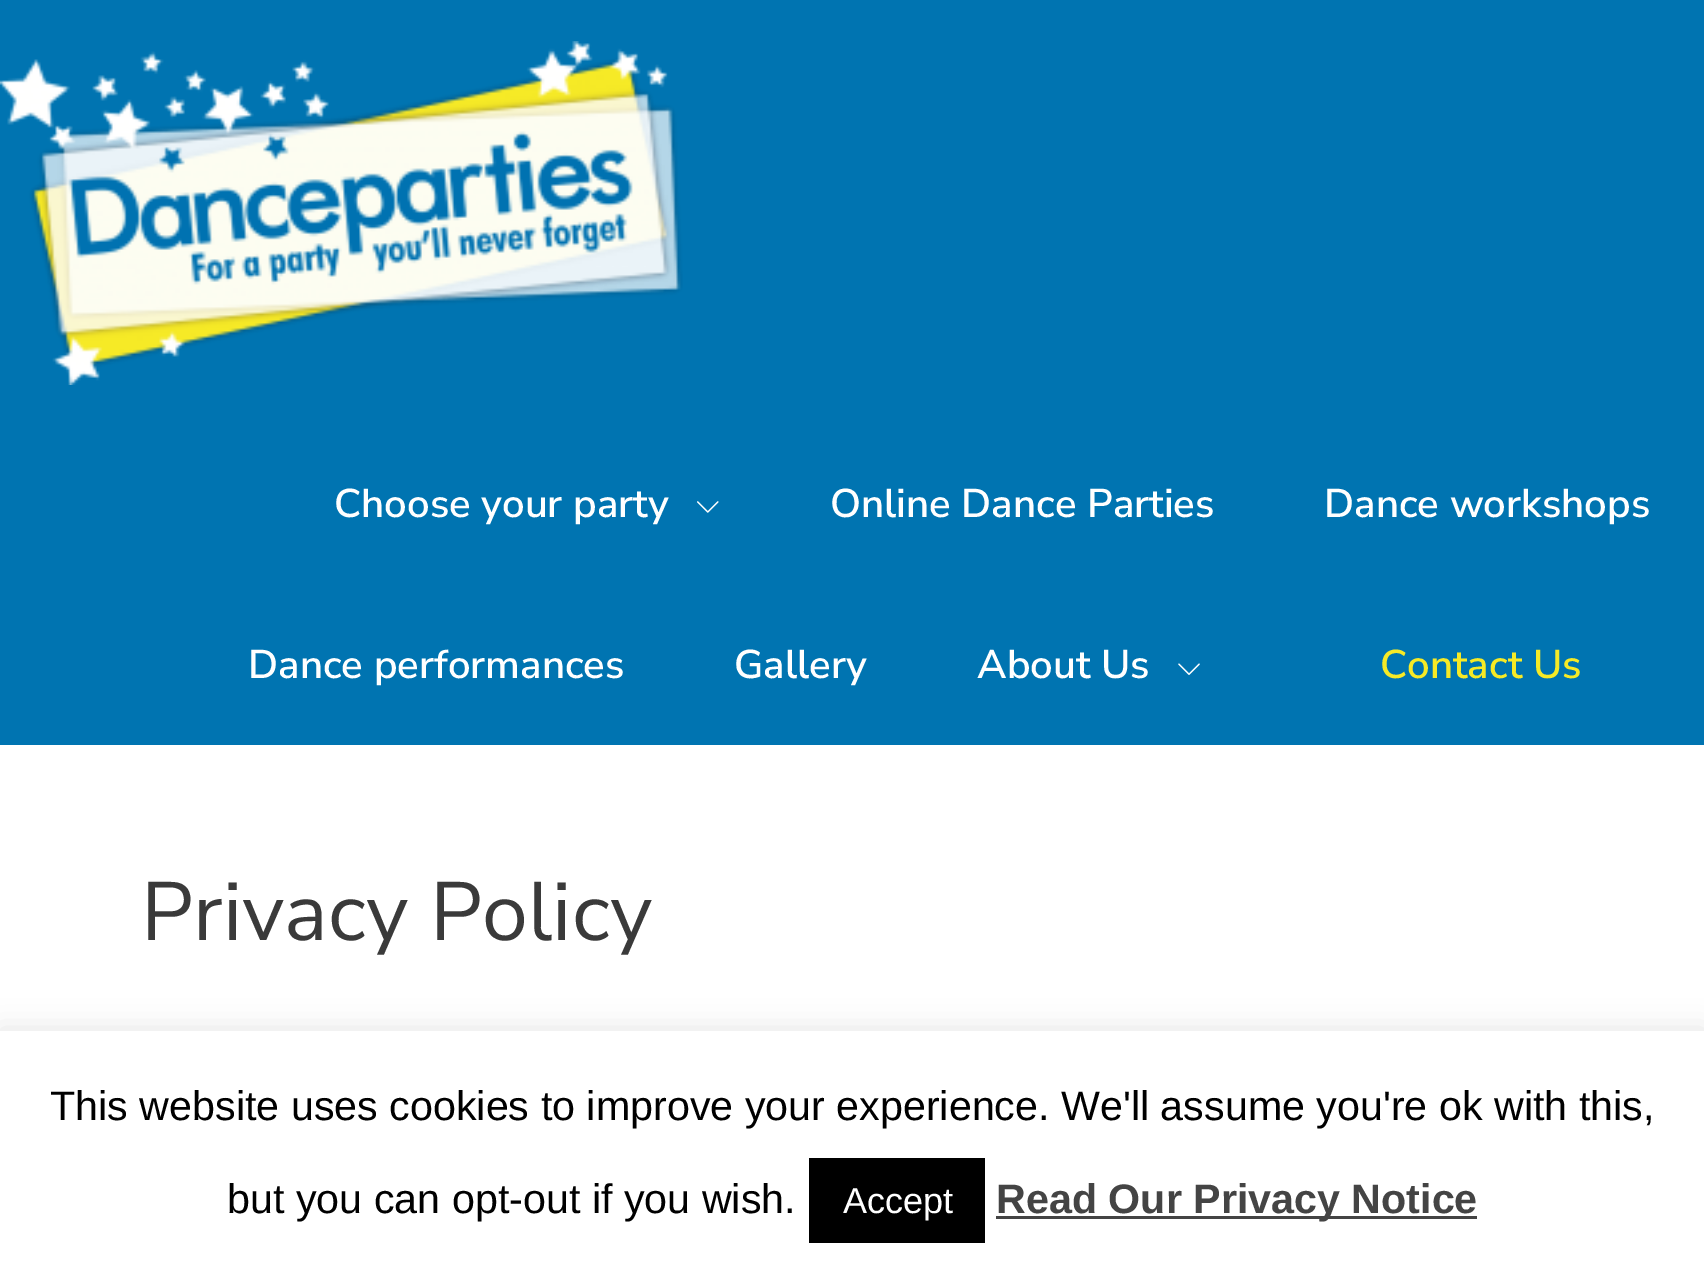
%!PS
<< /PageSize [1704 1276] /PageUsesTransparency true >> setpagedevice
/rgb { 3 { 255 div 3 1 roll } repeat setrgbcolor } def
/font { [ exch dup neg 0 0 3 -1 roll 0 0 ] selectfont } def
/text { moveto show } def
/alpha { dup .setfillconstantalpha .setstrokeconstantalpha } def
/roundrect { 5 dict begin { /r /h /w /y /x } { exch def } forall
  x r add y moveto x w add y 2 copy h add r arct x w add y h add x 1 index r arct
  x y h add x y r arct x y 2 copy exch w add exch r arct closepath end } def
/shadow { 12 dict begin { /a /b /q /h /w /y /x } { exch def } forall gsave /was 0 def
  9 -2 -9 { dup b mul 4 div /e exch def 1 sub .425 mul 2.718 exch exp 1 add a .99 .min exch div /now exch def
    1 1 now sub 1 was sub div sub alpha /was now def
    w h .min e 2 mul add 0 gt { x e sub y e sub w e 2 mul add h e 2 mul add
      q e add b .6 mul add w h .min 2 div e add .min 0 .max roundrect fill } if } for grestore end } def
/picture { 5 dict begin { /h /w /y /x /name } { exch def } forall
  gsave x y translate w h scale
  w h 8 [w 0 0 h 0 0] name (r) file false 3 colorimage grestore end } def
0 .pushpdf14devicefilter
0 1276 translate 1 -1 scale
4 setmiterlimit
255 255 255 rgb
0 0 1704 1276 rectfill
0 116 177 rgb
0 0 1704 745 rectfill
(img_01.rgb) 0 41 683 344 picture
(img_02.rgb) 697 501 22 12 picture
(img_03.rgb) 1178 663 22 12 picture
172 171 171 rgb
0 1029 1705 244 0 14 0.3 shadow
255 255 255 rgb
0 1031 1704 245 rectfill
0 0 0 rgb
809 1158 176 85 rectfill
68 68 68 rgb
996 1216 481 3 rectfill
/NunitoSans-SemiBold 40.1 font
255 255 255 rgb
(Choose your party) 334 517 text
(Online Dance Parties) 830 517 text
(Dance workshops) 1324 517 text
(Dance performances) 248 678 text
(Gallery) 734 678 text
(About Us) 977 678 text
246 234 38 rgb
(Contact Us) 1380 678 text
/NunitoSans-Regular 82.5 font
58 58 58 rgb
(Privacy Policy) 141 940 text
/LiberationSans-Regular 41.25 font
0 0 0 rgb
(This website uses cookies to improve your experience. We'll assume you're ok with this,) 50 1120 text
(but you can opt-out if you wish.) 227 1213 text
/LiberationSans-Regular 36 font
255 255 255 rgb
(Accept) 843 1213 text
/LiberationSans-Bold 41.25 font
68 68 68 rgb
(Read Our Privacy Notice) 996 1213 text
.poppdf14devicefilter showpage
